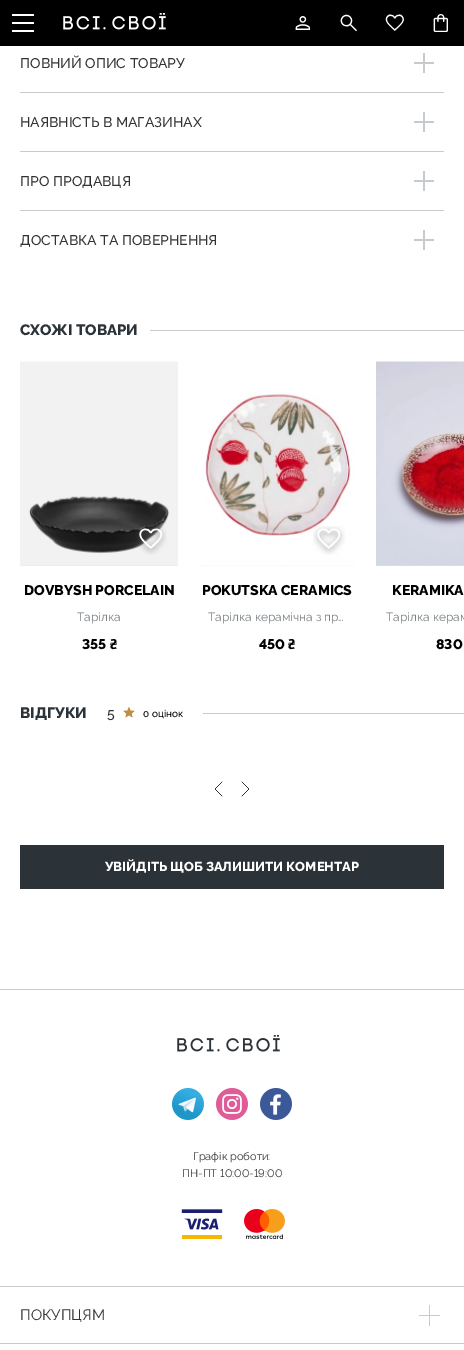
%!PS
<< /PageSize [464 1350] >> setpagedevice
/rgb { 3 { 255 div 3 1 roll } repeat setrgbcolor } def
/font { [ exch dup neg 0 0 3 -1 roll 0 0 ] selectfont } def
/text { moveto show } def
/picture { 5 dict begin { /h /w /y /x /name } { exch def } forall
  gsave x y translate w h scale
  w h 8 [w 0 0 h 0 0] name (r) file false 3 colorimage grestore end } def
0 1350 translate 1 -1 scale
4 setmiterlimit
255 255 255 rgb
0 0 464 1350 rectfill
0 0 0 rgb
0 0 464 46 rectfill
255 255 255 rgb
12 22 22 2 rectfill
12 14 22 2 rectfill
12 30 22 2 rectfill
(img_01.rgb) 63 13 103 17 picture
(img_02.rgb) 295 16 15 14 picture
(img_03.rgb) 340 14 17 18 picture
(img_04.rgb) 385 14 19 17 picture
(img_05.rgb) 433 14 15 18 picture
200 203 206 rgb
414 62 20 2 rectfill
423 53 2 20 rectfill
20 92 424 1 rectfill
414 121 20 2 rectfill
423 112 2 20 rectfill
20 151 424 1 rectfill
414 180 20 2 rectfill
423 171 2 20 rectfill
20 210 424 1 rectfill
414 239 20 2 rectfill
423 230 2 20 rectfill
150 330 314 1 rectfill
236 236 236 rgb
20 565 158 1 rectfill
(img_06.rgb) 20 361 158 204 picture
(img_07.rgb) 137 527 30 28 picture
(img_08.rgb) 198 361 158 205 picture
(img_09.rgb) 313 526 32 29 picture
(img_10.rgb) 376 361 88 205 picture
(img_11.rgb) 123 706 12 12 picture
200 203 206 rgb
203 713 261 1 rectfill
(img_12.rgb) 215 781 8 16 picture
(img_13.rgb) 241 781 8 16 picture
43 51 56 rgb
20 845 424 44 rectfill
200 203 206 rgb
0 989 464 1 rectfill
(img_14.rgb) 177 1035 103 17 picture
(img_15.rgb) 172 1088 32 32 picture
(img_16.rgb) 216 1088 32 32 picture
(img_17.rgb) 260 1088 32 32 picture
(img_18.rgb) 181 1209 42 30 picture
(img_19.rgb) 244 1209 41 30 picture
0 1286 464 1 rectfill
0 1343 464 1 rectfill
419 1315 21 1 rectfill
429 1305 1 21 rectfill
/Raleway-Medium 14 font
51 51 51 rgb
(ПОВНИЙ ОПИС ТОВАРУ) 20 68 text
(НАЯВНІСТЬ В МАГАЗИНАХ) 20 127 text
(ПРО ПРОДАВЦЯ) 20 186 text
(ДОСТАВКА ТА ПОВЕРНЕННЯ) 20 245 text
/Raleway-ExtraBold 15 font
43 51 56 rgb
(СХОЖІ ТОВАРИ) 20 335 text
/Raleway-ExtraBold 14 font
0 0 0 rgb
(DOVBYSH PORCELAIN) 24 595 text
/Raleway-Regular 12 font
121 127 131 rgb
(Тарілка) 77 621 text
/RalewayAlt-ExtraBold 14 font
0 0 0 rgb
(355 ₴) 82 649 text
/Raleway-ExtraBold 14 font
(POKUTSKA CERAMICS) 202 595 text
/Raleway-Regular 12 font
121 127 131 rgb
(Тарілка керамічна з пр…) 208 621 text
/RalewayAlt-ExtraBold 14 font
0 0 0 rgb
(450 ₴) 259 649 text
/Raleway-ExtraBold 14 font
(KERAMIKA) 392 595 text
/Raleway-Regular 12 font
121 127 131 rgb
(Тарілка керам) 386 621 text
/RalewayAlt-ExtraBold 14 font
0 0 0 rgb
(830) 436 649 text
/Raleway-ExtraBold 15 font
43 51 56 rgb
(ВІДГУКИ) 20 718 text
/Raleway-Medium 14 font
(5) 107 718 text
/Raleway-Medium 10 font
0 0 0 rgb
(0 оцінок) 143 717 text
/Raleway-ExtraBold 13 font
255 255 255 rgb
(УВІЙДІТЬ ЩОБ ЗАЛИШИТИ КОМЕНТАР) 105 871 text
/Raleway-Regular 11 font
51 51 51 rgb
(Графік роботи:) 193 1160 text
/RalewayAlt-Regular 11 font
(ПН-ПТ 10:00-19:00) 182 1177 text
/Raleway-Regular 15 font
(ПОКУПЦЯМ) 20 1320 text
showpage
